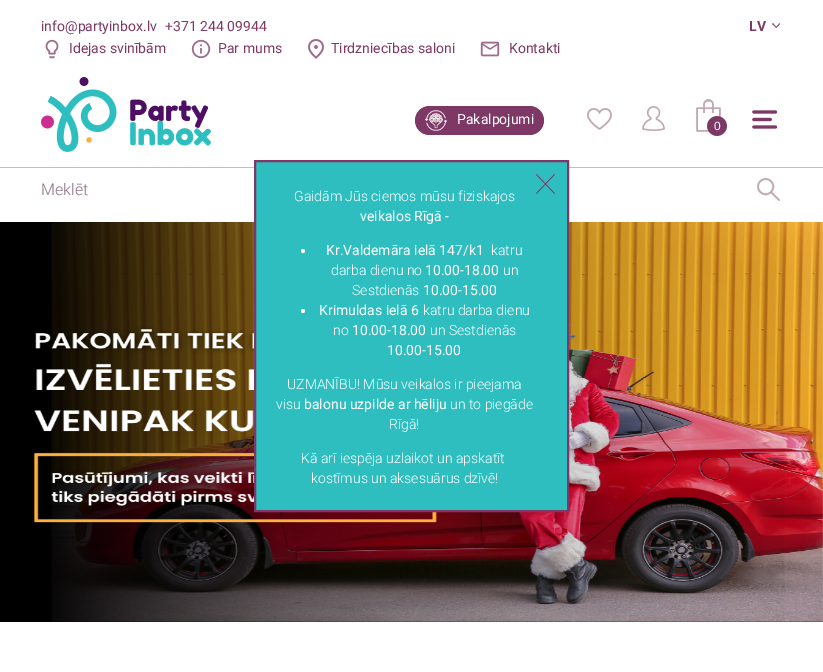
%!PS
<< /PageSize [823 672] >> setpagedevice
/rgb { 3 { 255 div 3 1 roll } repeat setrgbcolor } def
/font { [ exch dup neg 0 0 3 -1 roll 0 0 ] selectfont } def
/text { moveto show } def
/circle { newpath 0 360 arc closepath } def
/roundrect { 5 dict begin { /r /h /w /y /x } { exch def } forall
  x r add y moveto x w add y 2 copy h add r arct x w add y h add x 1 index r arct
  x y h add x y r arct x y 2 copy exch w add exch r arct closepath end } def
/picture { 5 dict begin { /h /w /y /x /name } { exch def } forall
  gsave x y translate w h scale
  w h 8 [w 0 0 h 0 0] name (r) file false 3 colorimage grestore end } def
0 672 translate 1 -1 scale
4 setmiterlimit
255 255 255 rgb
0 0 823 672 rectfill
(img_01.rgb) 772 23 8 5 picture
(img_02.rgb) 45 39 14 20 picture
(img_03.rgb) 191 39 20 20 picture
(img_04.rgb) 308 39 16 20 picture
(img_05.rgb) 480 41 20 16 picture
(img_06.rgb) 41 77 170 75 picture
(img_07.rgb) 752 110 25 19 picture
125 56 101 rgb
415 106 129 29 14.5 roundrect fill
(img_08.rgb) 425 110 22 21 picture
(img_09.rgb) 587 108 25 22 picture
(img_10.rgb) 642 106 23 25 picture
(img_11.rgb) 696 99 31 37 picture
207 185 193 rgb
0 167 823 1 rectfill
(img_12.rgb) 757 178 23 23 picture
(img_14.rgb) 0 222 823 400 picture
46 190 192 rgb
255 161 moveto 313 0 rlineto 0 350 rlineto -313 0 rlineto closepath gsave fill grestore
125 56 101 rgb
2 setlinewidth
stroke
(img_13.rgb) 536 174 19 20 picture
255 255 255 rgb
303 251 2 circle fill
303 311 2 circle fill
/Roboto-Regular 14 font
125 56 101 rgb
(info@partyinbox.lv) 41 31 text
(+371 244 09944) 165 31 text
/Roboto-Bold 14 font
(LV) 749 31 text
/Roboto-Regular 14 font
(Idejas svinībām) 69 53 text
(Par mums) 218 53 text
(Tirdzniecības saloni) 331 53 text
(Kontakti) 509 53 text
255 255 255 rgb
(Pakalpojumi) 457 124 text
/LiberationSans-Regular 12 font
(0) 714 130 text
/Roboto-Light 16 font
141 110 130 rgb
(Meklēt) 41 195 text
/Roboto-Light 14 font
255 255 255 rgb
(Gaidām Jūs ciemos mūsu fiziskajos) 294 201 text
/Roboto-Regular 14 font
(veikalos Rīgā -) 360 221 text
(Kr.Valdemāra ielā 147/k1) 326 255 text
/Roboto-Light 14 font
(katru) 491 255 text
(darba dienu no) 331 275 text
/Roboto-Regular 14 font
(10.00-18.00) 425 275 text
/Roboto-Light 14 font
(un) 503 275 text
(Sestdienās) 352 295 text
/Roboto-Regular 14 font
(10.00-15.00) 423 295 text
(Krimuldas ielā 6) 319 315 text
/Roboto-Light 14 font
(katru darba dienu) 423 315 text
(no) 333 335 text
/Roboto-Regular 14 font
(10.00-18.00) 352 335 text
/Roboto-Light 14 font
(un Sestdienās) 430 335 text
/Roboto-Regular 14 font
(10.00-15.00) 387 355 text
/Roboto-Light 14 font
(UZMANĪBU! Mūsu veikalos ir pieejama) 287 389 text
(visu) 276 409 text
/Roboto-Regular 14 font
(balonu uzpilde ar hēliju) 304 409 text
/Roboto-Light 14 font
(un to piegāde) 450 409 text
(Rīgā!) 389 429 text
(Kā arī iespēja uzlaikot un apskatīt) 301 463 text
(kostīmus un aksesuārus dzīvē!) 311 483 text
showpage
